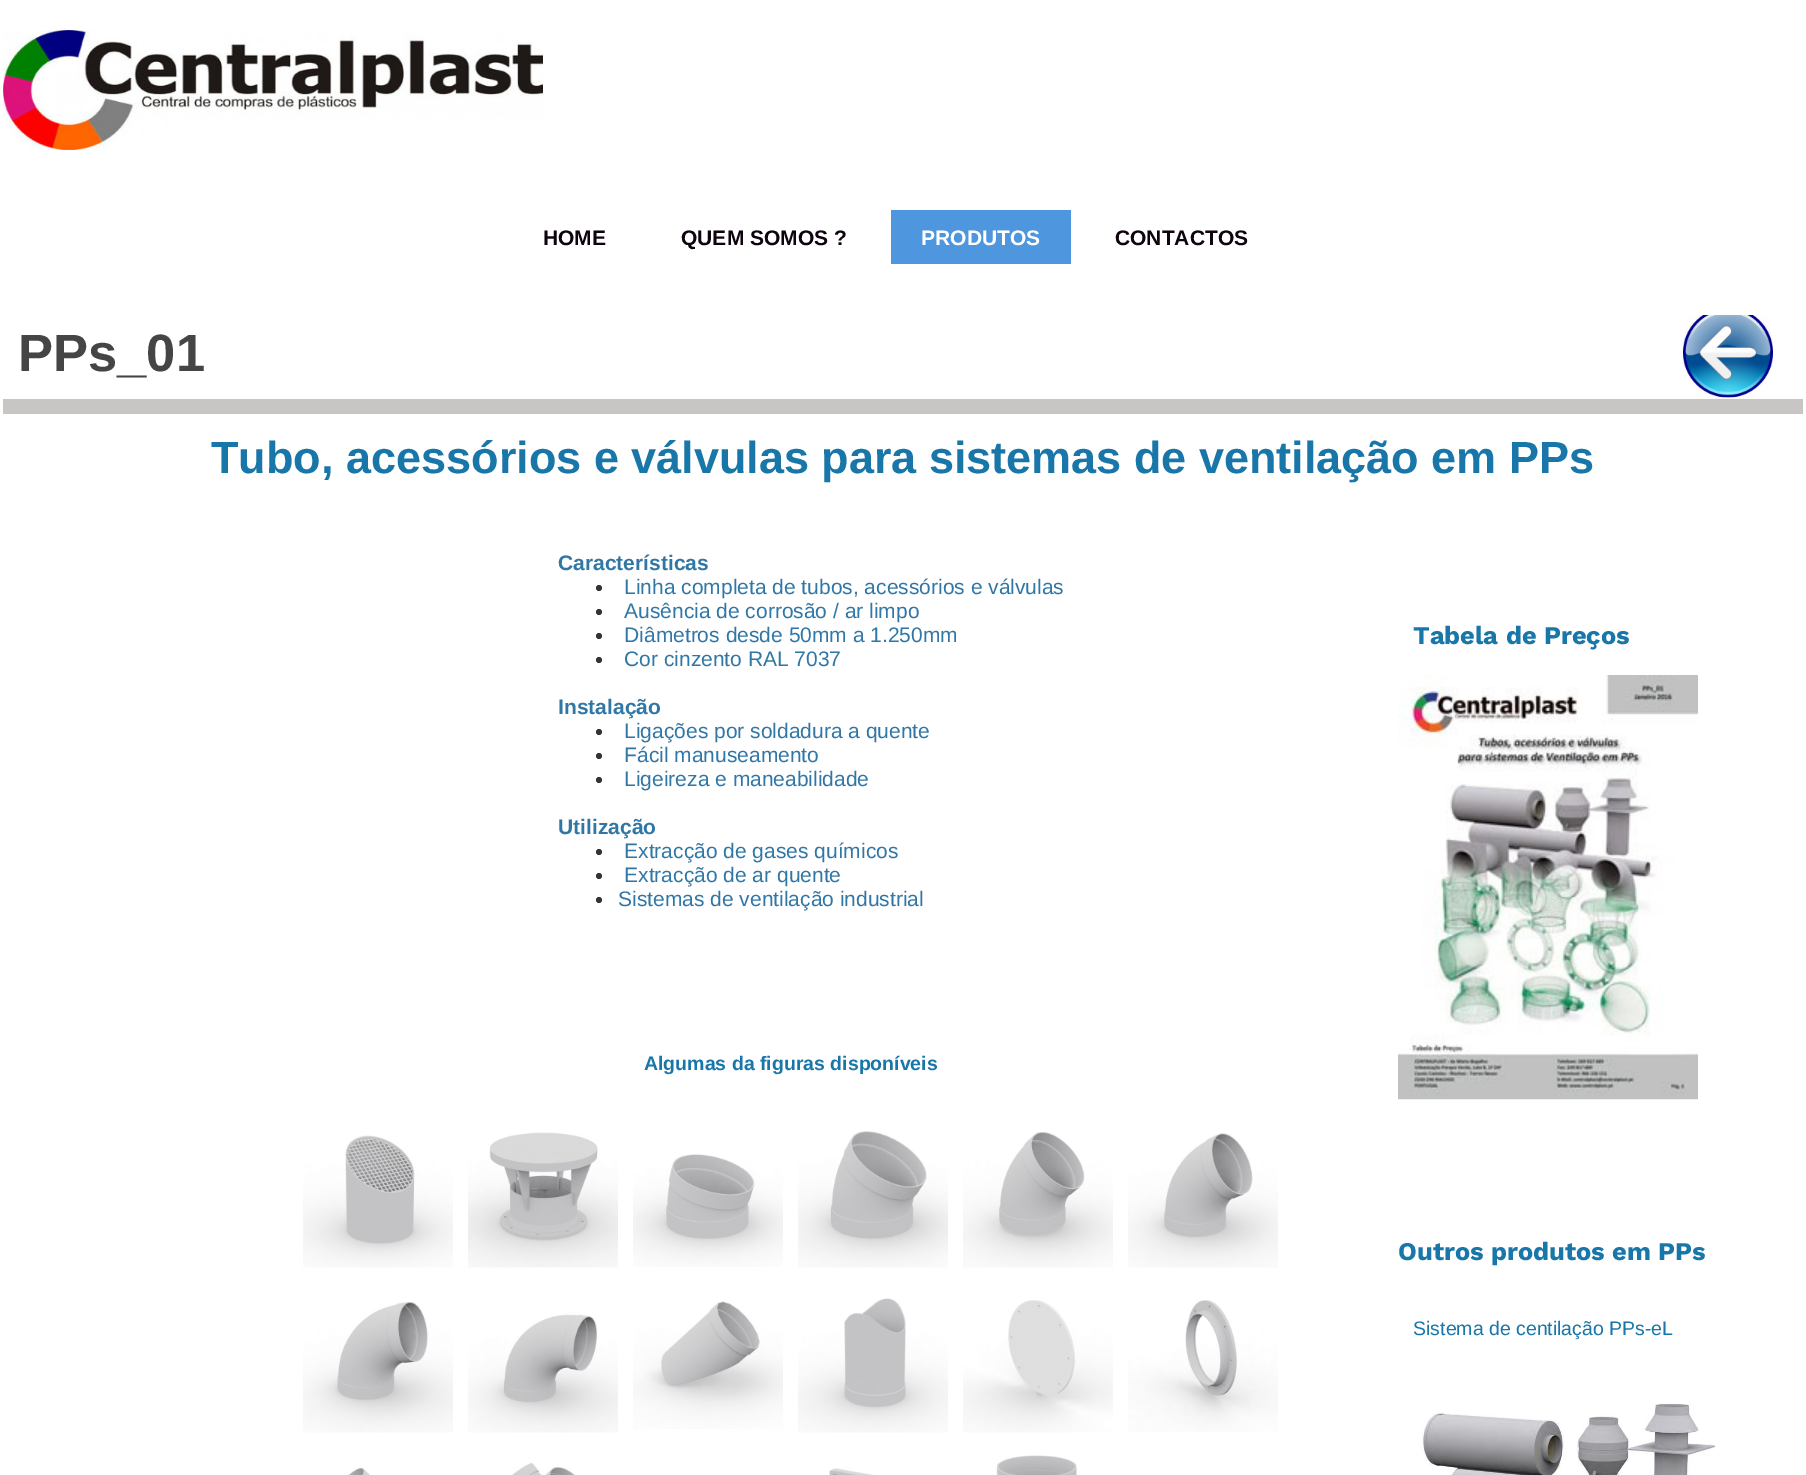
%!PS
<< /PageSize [1806 1475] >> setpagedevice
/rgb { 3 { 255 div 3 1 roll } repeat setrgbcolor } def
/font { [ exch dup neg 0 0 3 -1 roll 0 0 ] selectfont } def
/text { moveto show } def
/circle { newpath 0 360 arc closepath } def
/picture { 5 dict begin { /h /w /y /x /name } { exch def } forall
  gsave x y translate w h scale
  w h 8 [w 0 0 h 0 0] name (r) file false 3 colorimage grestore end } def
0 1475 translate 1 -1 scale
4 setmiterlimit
255 255 255 rgb
0 0 1806 1475 rectfill
(img_01.rgb) 3 30 540 120 picture
78 150 222 rgb
891 210 180 54 rectfill
(img_02.rgb) 1683 315 90 83 picture
199 198 197 rgb
3 399 1800 15 rectfill
51 51 51 rgb
599 588 3 circle fill
599 612 3 circle fill
599 636 3 circle fill
599 660 3 circle fill
599 732 3 circle fill
599 756 3 circle fill
599 780 3 circle fill
599 852 3 circle fill
599 876 3 circle fill
599 900 3 circle fill
(img_03.rgb) 1398 675 300 425 picture
(img_04.rgb) 303 1135 150 133 picture
(img_05.rgb) 468 1132 150 136 picture
(img_06.rgb) 633 1154 150 113 picture
(img_07.rgb) 798 1131 150 137 picture
(img_08.rgb) 963 1132 150 136 picture
(img_09.rgb) 1128 1133 150 135 picture
(img_10.rgb) 303 1302 150 131 picture
(img_11.rgb) 468 1314 150 119 picture
(img_12.rgb) 633 1301 150 128 picture
(img_13.rgb) 798 1298 150 135 picture
(img_14.rgb) 963 1300 150 133 picture
(img_15.rgb) 1128 1300 150 132 picture
(img_16.rgb) 348 1467 22 8 picture
(img_17.rgb) 512 1462 63 13 picture
(img_18.rgb) 829 1468 45 7 picture
(img_19.rgb) 996 1455 81 20 picture
(img_20.rgb) 1422 1403 293 72 picture
/LiberationSans-Bold 21 font
15 3 15 rgb
(HOME) 543 245 text
(QUEM SOMOS ?) 681 245 text
255 255 255 rgb
(PRODUTOS) 921 245 text
15 3 15 rgb
(CONTACTOS) 1115 245 text
/LiberationSans-Bold 52.5 font
69 69 69 rgb
(PPs_01) 18 371 text
/LiberationSans-Bold 45 font
24 118 168 rgb
(Tubo, acessórios e válvulas para sistemas de ventilação em PPs) 211 473 text
/LiberationSans-Bold 21 font
48 119 166 rgb
(Características) 558 570 text
/LiberationSans-Regular 21 font
(Linha completa de tubos, acessórios e válvulas) 624 594 text
(Ausência de corrosão / ar limpo) 624 618 text
(Diâmetros desde 50mm a 1.250mm) 624 642 text
(Cor cinzento RAL 7037) 624 666 text
/LiberationSans-Bold 21 font
(Instalação) 558 714 text
/LiberationSans-Regular 21 font
(Ligações por soldadura a quente) 624 738 text
(Fácil manuseamento) 624 762 text
(Ligeireza e maneabilidade) 624 786 text
/LiberationSans-Bold 21 font
(Utilização) 558 834 text
/LiberationSans-Regular 21 font
(Extracção de gases químicos) 624 858 text
(Extracção de ar quente) 624 882 text
(Sistemas de ventilação industrial) 618 906 text
/WorkSans-Bold 25.5 font
24 118 168 rgb
(Tabela de Preços) 1413 644 text
/LiberationSans-Bold 19.5 font
(Algumas da figuras disponíveis) 644 1070 text
/WorkSans-Bold 25.5 font
(Outros produtos em PPs) 1398 1260 text
/LiberationSans-Regular 19.5 font
(Sistema de centilação PPs-eL) 1413 1335 text
showpage
